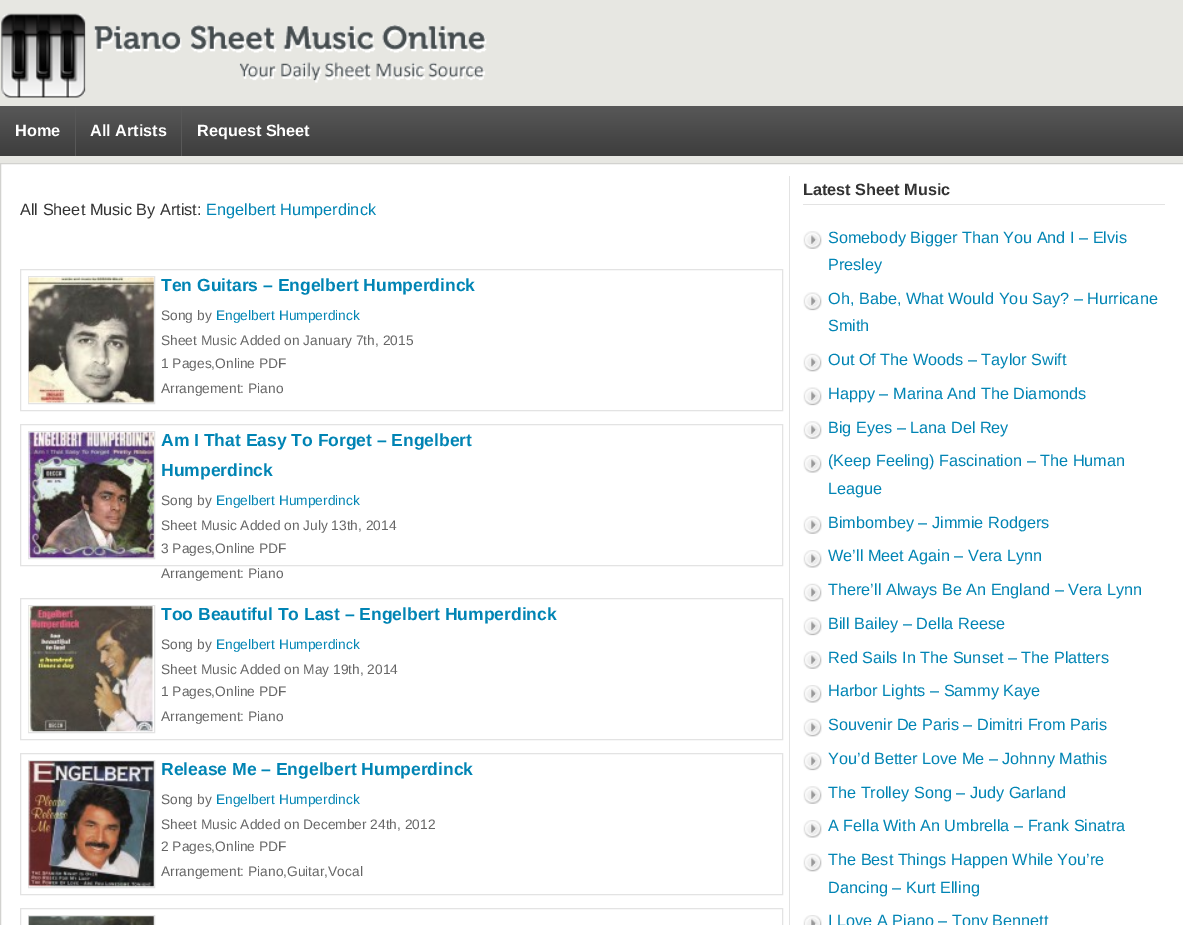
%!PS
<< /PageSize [1183 925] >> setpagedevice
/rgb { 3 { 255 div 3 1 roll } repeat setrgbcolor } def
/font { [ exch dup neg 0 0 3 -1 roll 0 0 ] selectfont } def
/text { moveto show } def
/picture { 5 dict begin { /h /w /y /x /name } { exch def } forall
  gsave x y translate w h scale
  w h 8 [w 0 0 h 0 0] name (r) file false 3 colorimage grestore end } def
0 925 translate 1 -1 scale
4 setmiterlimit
231 231 226 rgb
0 0 1183 925 rectfill
(img_01.rgb) 1 13 486 85 picture
gsave 0 106 moveto 1183 0 rlineto 0 50 rlineto -1183 0 rlineto closepath clip newpath
<< /ShadingType 2 /ColorSpace /DeviceRGB /Coords [594 106 594 156] /Extend [true true] /Function << /FunctionType 2 /Domain [0 1] /C0 [0.345 0.345 0.345] /C1 [0.239 0.239 0.239] /N 1 >> >> shfill grestore
88 88 88 rgb
75 106 1 50 rectfill
181 106 1 50 rectfill
255 255 255 rgb
0.5 163.5 moveto 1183 0 rlineto 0 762 rlineto -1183 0 rlineto closepath gsave fill grestore
210 210 207 rgb
stroke
227 227 227 rgb
789 176 1 749 rectfill
20.5 269.5 762 141 rectstroke
28.5 276.5 126 127 rectstroke
(img_02.rgb) 28 277 126 126 picture
20.5 424.5 762 141 rectstroke
28.5 431.5 126 127 rectstroke
(img_03.rgb) 28 432 126 126 picture
20.5 598.5 762 141 rectstroke
28.5 605.5 126 127 rectstroke
(img_04.rgb) 28 606 126 126 picture
20.5 753.5 762 141 rectstroke
28.5 760.5 126 127 rectstroke
(img_05.rgb) 28 761 126 126 picture
20.5 908.5 762 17 rectstroke
28.5 915.5 126 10 rectstroke
(img_06.rgb) 28 916 126 9 picture
803 204 362 1 rectfill
(img_07.rgb) 803 231 19 18 picture
(img_08.rgb) 803 292 19 19 picture
(img_09.rgb) 803 353 19 19 picture
(img_10.rgb) 803 387 19 19 picture
(img_07.rgb) 803 421 19 18 picture
(img_11.rgb) 803 455 19 18 picture
(img_07.rgb) 803 516 19 18 picture
(img_11.rgb) 803 550 19 18 picture
(img_12.rgb) 803 583 19 19 picture
(img_10.rgb) 803 617 19 19 picture
(img_07.rgb) 803 651 19 18 picture
(img_11.rgb) 803 685 19 18 picture
(img_09.rgb) 803 718 19 19 picture
(img_10.rgb) 803 752 19 19 picture
(img_07.rgb) 803 786 19 18 picture
(img_11.rgb) 803 820 19 18 picture
(img_09.rgb) 803 853 19 19 picture
(img_13.rgb) 803 915 19 10 picture
/LiberationSans-Bold 16.25 font
255 255 255 rgb
(Home) 15 136 text
(All Artists) 90 136 text
(Request Sheet) 197 136 text
/LiberationSans-Regular 16.25 font
51 51 51 rgb
(All Sheet Music By Artist:) 20 215 text
0 132 180 rgb
(Engelbert Humperdinck) 206 215 text
/LiberationSans-Bold 17.5 font
(Ten Guitars – Engelbert Humperdinck) 161 291 text
/LiberationSans-Regular 13.75 font
102 102 102 rgb
(Song by) 161 320 text
0 132 180 rgb
(Engelbert Humperdinck) 216 320 text
102 102 102 rgb
(Sheet Music Added on January 7th, 2015) 161 345 text
(1 Pages,Online PDF) 161 368 text
(Arrangement: Piano) 161 393 text
/LiberationSans-Bold 17.5 font
0 132 180 rgb
(Am I That Easy To Forget – Engelbert) 161 446 text
(Humperdinck) 161 476 text
/LiberationSans-Regular 13.75 font
102 102 102 rgb
(Song by) 161 505 text
0 132 180 rgb
(Engelbert Humperdinck) 216 505 text
102 102 102 rgb
(Sheet Music Added on July 13th, 2014) 161 530 text
(3 Pages,Online PDF) 161 553 text
(Arrangement: Piano) 161 578 text
/LiberationSans-Bold 17.5 font
0 132 180 rgb
(Too Beautiful To Last – Engelbert Humperdinck) 161 620 text
/LiberationSans-Regular 13.75 font
102 102 102 rgb
(Song by) 161 649 text
0 132 180 rgb
(Engelbert Humperdinck) 216 649 text
102 102 102 rgb
(Sheet Music Added on May 19th, 2014) 161 674 text
(1 Pages,Online PDF) 161 696 text
(Arrangement: Piano) 161 721 text
/LiberationSans-Bold 17.5 font
0 132 180 rgb
(Release Me – Engelbert Humperdinck) 161 775 text
/LiberationSans-Regular 13.75 font
102 102 102 rgb
(Song by) 161 804 text
0 132 180 rgb
(Engelbert Humperdinck) 216 804 text
102 102 102 rgb
(Sheet Music Added on December 24th, 2012) 161 829 text
(2 Pages,Online PDF) 161 851 text
(Arrangement: Piano,Guitar,Vocal) 161 876 text
/LiberationSans-Bold 16.25 font
51 51 51 rgb
(Latest Sheet Music) 803 195 text
/LiberationSans-Regular 16.25 font
0 132 180 rgb
(Somebody Bigger Than You And I – Elvis) 828 243 text
(Presley) 828 270 text
(Oh, Babe, What Would You Say? – Hurricane) 828 304 text
(Smith) 828 331 text
(Out Of The Woods – Taylor Swift) 828 365 text
(Happy – Marina And The Diamonds) 828 399 text
(Big Eyes – Lana Del Rey) 828 433 text
(\(Keep Feeling\) Fascination – The Human) 828 466 text
(League) 828 494 text
(Bimbombey – Jimmie Rodgers) 828 528 text
(We’ll Meet Again – Vera Lynn) 828 561 text
(There’ll Always Be An England – Vera Lynn) 828 595 text
(Bill Bailey – Della Reese) 828 629 text
(Red Sails In The Sunset – The Platters) 828 663 text
(Harbor Lights – Sammy Kaye) 828 696 text
(Souvenir De Paris – Dimitri From Paris) 828 730 text
(You’d Better Love Me – Johnny Mathis) 828 764 text
(The Trolley Song – Judy Garland) 828 798 text
(A Fella With An Umbrella – Frank Sinatra) 828 831 text
(The Best Things Happen While You’re) 828 865 text
(Dancing – Kurt Elling) 828 893 text
(I Love A Piano – Tony Bennett) 828 926 text
showpage
